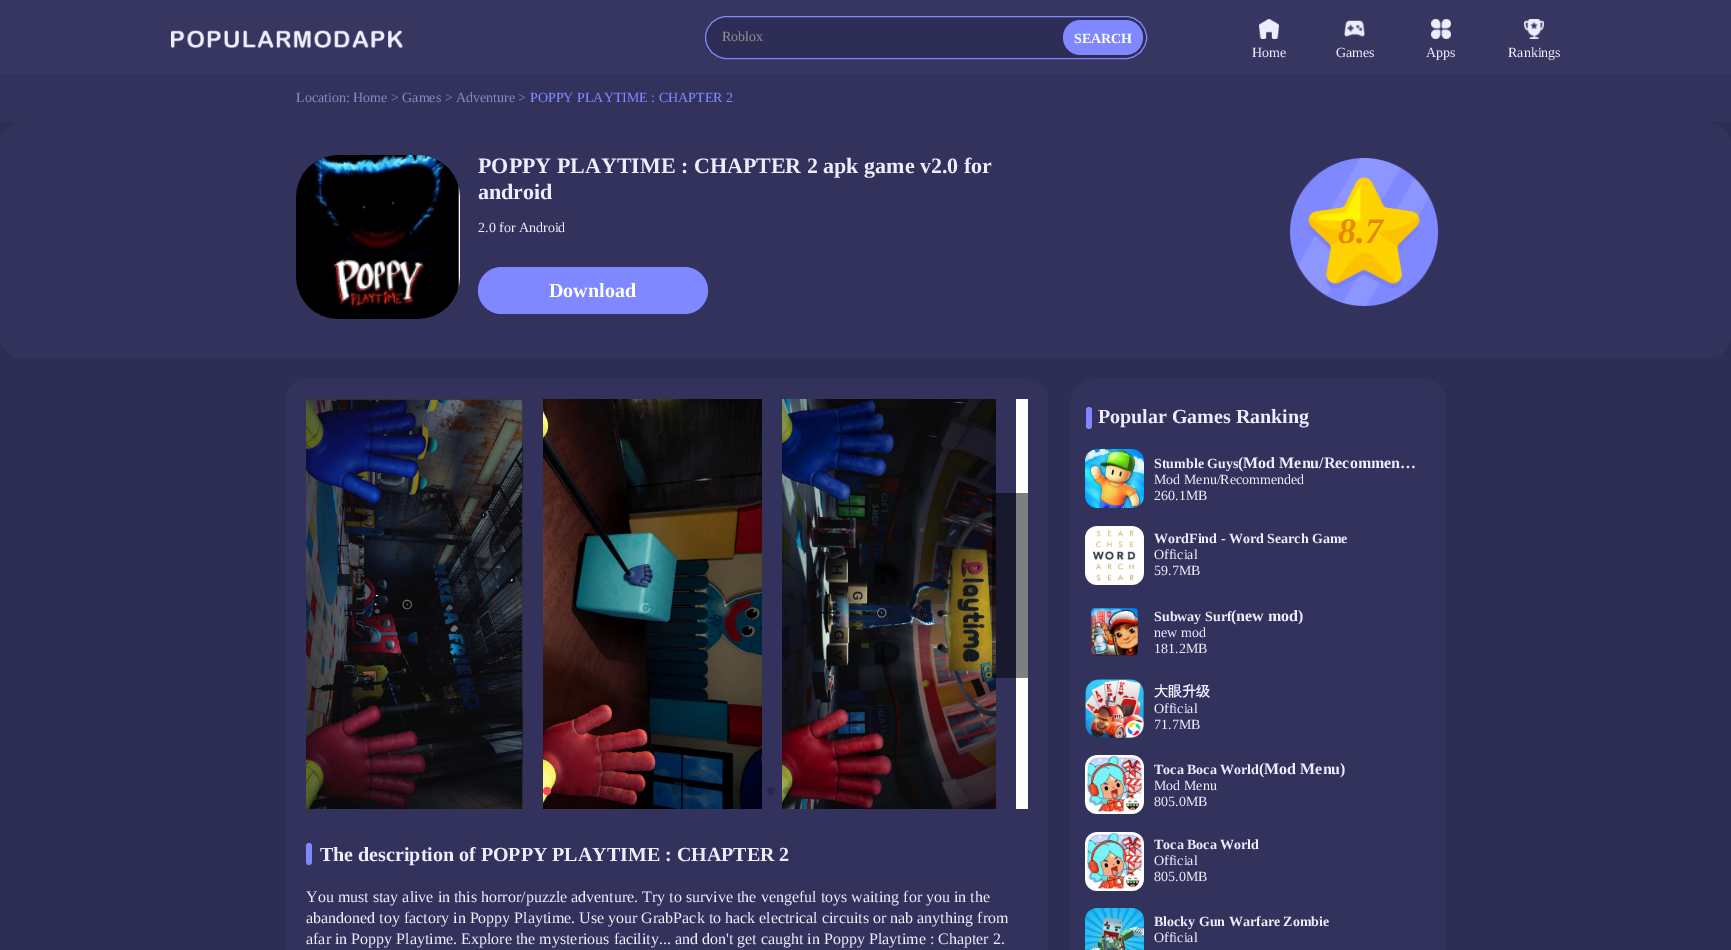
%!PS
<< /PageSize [1731 950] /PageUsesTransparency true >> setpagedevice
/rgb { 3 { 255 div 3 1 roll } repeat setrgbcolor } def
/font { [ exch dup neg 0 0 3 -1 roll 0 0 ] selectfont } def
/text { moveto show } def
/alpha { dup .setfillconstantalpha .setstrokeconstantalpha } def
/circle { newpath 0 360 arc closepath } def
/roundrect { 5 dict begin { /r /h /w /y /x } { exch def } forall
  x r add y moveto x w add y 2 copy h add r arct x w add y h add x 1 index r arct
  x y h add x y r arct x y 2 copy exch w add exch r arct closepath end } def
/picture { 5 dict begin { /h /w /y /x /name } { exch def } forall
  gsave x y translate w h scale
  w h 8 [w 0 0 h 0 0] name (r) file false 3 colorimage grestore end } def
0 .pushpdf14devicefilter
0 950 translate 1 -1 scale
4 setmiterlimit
46 45 85 rgb
0 0 1731 950 rectfill
55 54 96 rgb
0 0 1731 74 rectfill
(img_01.rgb) 171 30 232 18 picture
46 45 85 rgb
705.5 16.5 441 42 21 roundrect gsave fill grestore
127 136 255 rgb
stroke
1063 20 80 35 17.5 roundrect fill
(img_02.rgb) 1259 19 20 20 picture
(img_03.rgb) 1344 20 21 17 picture
(img_04.rgb) 1431 19 20 20 picture
(img_05.rgb) 1524 19 20 20 picture
51 50 92 rgb
0 74 1731 48 rectfill
0 122 1731 237 24 roundrect fill
(img_06.rgb) 296 155 164 164 picture
127 136 255 rgb
478 267 230 47 23.5 roundrect fill
(img_07.rgb) 1290 158 148 148 picture
51 50 92 rgb
286 379 762 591 20 roundrect fill
(img_08.rgb) 306 399 217 410 picture
(img_09.rgb) 543 399 219 410 picture
(img_10.rgb) 782 399 214 410 picture
255 255 255 rgb
1016 399 12 410 rectfill
0.5 alpha
0 0 0 rgb
992 493 36 185 rectfill
1 alpha
255 69 85 rgb
547 791 4 circle fill
0.2 alpha
0 0 0 rgb
563 791 4 circle fill
579 791 4 circle fill
595 791 4 circle fill
611 791 4 circle fill
627 791 4 circle fill
643 791 4 circle fill
659 791 4 circle fill
675 791 4 circle fill
691 791 4 circle fill
707 791 4 circle fill
723 791 4 circle fill
739 791 4 circle fill
755 791 4 circle fill
1 alpha
41 40 74 rgb
771 791 4 circle fill
0.2 alpha
0 0 0 rgb
787 791 4 circle fill
1 alpha
127 136 255 rgb
306 843 6 22 3 roundrect fill
51 50 92 rgb
1071 379 375 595 24 roundrect fill
127 136 255 rgb
1086 407 6 22 3 roundrect fill
(img_11.rgb) 1085 449 59 59 picture
(img_12.rgb) 1085 526 59 59 picture
(img_13.rgb) 1091 608 47 49 picture
(img_14.rgb) 1085 679 59 59 picture
(img_15.rgb) 1085 755 59 59 picture
(img_16.rgb) 1085 832 59 59 picture
(img_17.rgb) 1085 908 59 42 picture
/LiberationSerif-Regular 14 font
143 143 143 rgb
(Roblox) 722 41 text
/LiberationSerif-Bold 14 font
255 255 255 rgb
(SEARCH) 1074 43 text
/LiberationSerif-Regular 14 font
238 237 255 rgb
(Home) 1252 57 text
(Games) 1336 57 text
(Apps) 1426 57 text
(Rankings) 1508 57 text
135 136 195 rgb
(Location: Home > Games > Adventure) 296 102 text
(>) 518 102 text
127 136 255 rgb
(POPPY PLAYTIME : CHAPTER 2) 530 102 text
/LiberationSerif-Bold 22 font
238 237 255 rgb
(POPPY PLAYTIME : CHAPTER 2 apk game v2.0 for) 478 173 text
(android) 478 199 text
/LiberationSerif-Regular 14 font
(2.0 for Android) 478 232 text
/LiberationSerif-Bold 20 font
255 255 255 rgb
(Download) 549 297 text
/LiberationSerif-BoldItalic 36 font
230 136 0 rgb
(8.7) 1338 243 text
/LiberationSerif-Bold 20 font
238 237 255 rgb
(The description of POPPY PLAYTIME : CHAPTER 2) 320 861 text
/LiberationSerif-Regular 16 font
(You must stay alive in this horror/puzzle adventure. Try to survive the vengeful toys waiting for you in the) 306 902 text
(abandoned toy factory in Poppy Playtime. Use your GrabPack to hack electrical circuits or nab anything from) 306 923 text
(afar in Poppy Playtime. Explore the mysterious facility... and don't get caught in Poppy Playtime : Chapter 2.) 306 944 text
/LiberationSerif-Bold 20 font
(Popular Games Ranking) 1098 423 text
/LiberationSerif-Bold 14 font
(Stumble Guys) 1154 468 text
/LiberationSerif-Bold 16 font
(\(Mod Menu/Recommen…) 1238 468 text
/LiberationSerif-Regular 14 font
(Mod Menu/Recommended) 1154 484 text
(260.1MB) 1154 500 text
/LiberationSerif-Bold 14 font
(WordFind - Word Search Game) 1154 543 text
/LiberationSerif-Regular 14 font
(Official) 1154 559 text
(59.7MB) 1154 575 text
/LiberationSerif-Bold 14 font
(Subway Surf) 1154 621 text
/LiberationSerif-Bold 16 font
(\(new mod\)) 1231 621 text
/LiberationSerif-Regular 14 font
(new mod) 1154 637 text
(181.2MB) 1154 653 text
/WenQuanYiZenHei-Bold 14 font
(大眼升级) 1154 696 text
/LiberationSerif-Regular 14 font
(Official) 1154 713 text
(71.7MB) 1154 729 text
gsave
1154 760 270 18 rectclip
/LiberationSerif-Bold 14 font
(Toca Boca World) 1154 774 text
grestore
/LiberationSerif-Bold 16 font
(\(Mod Menu\)) 1259 774 text
/LiberationSerif-Regular 14 font
(Mod Menu) 1154 790 text
(805.0MB) 1154 806 text
gsave
1154 837 270 16 rectclip
/LiberationSerif-Bold 14 font
(Toca Boca World) 1154 849 text
grestore
(Official) 1154 865 text
(805.0MB) 1154 881 text
/LiberationSerif-Bold 14 font
(Blocky Gun Warfare Zombie) 1154 926 text
/LiberationSerif-Regular 14 font
(Official) 1154 942 text
.poppdf14devicefilter showpage
